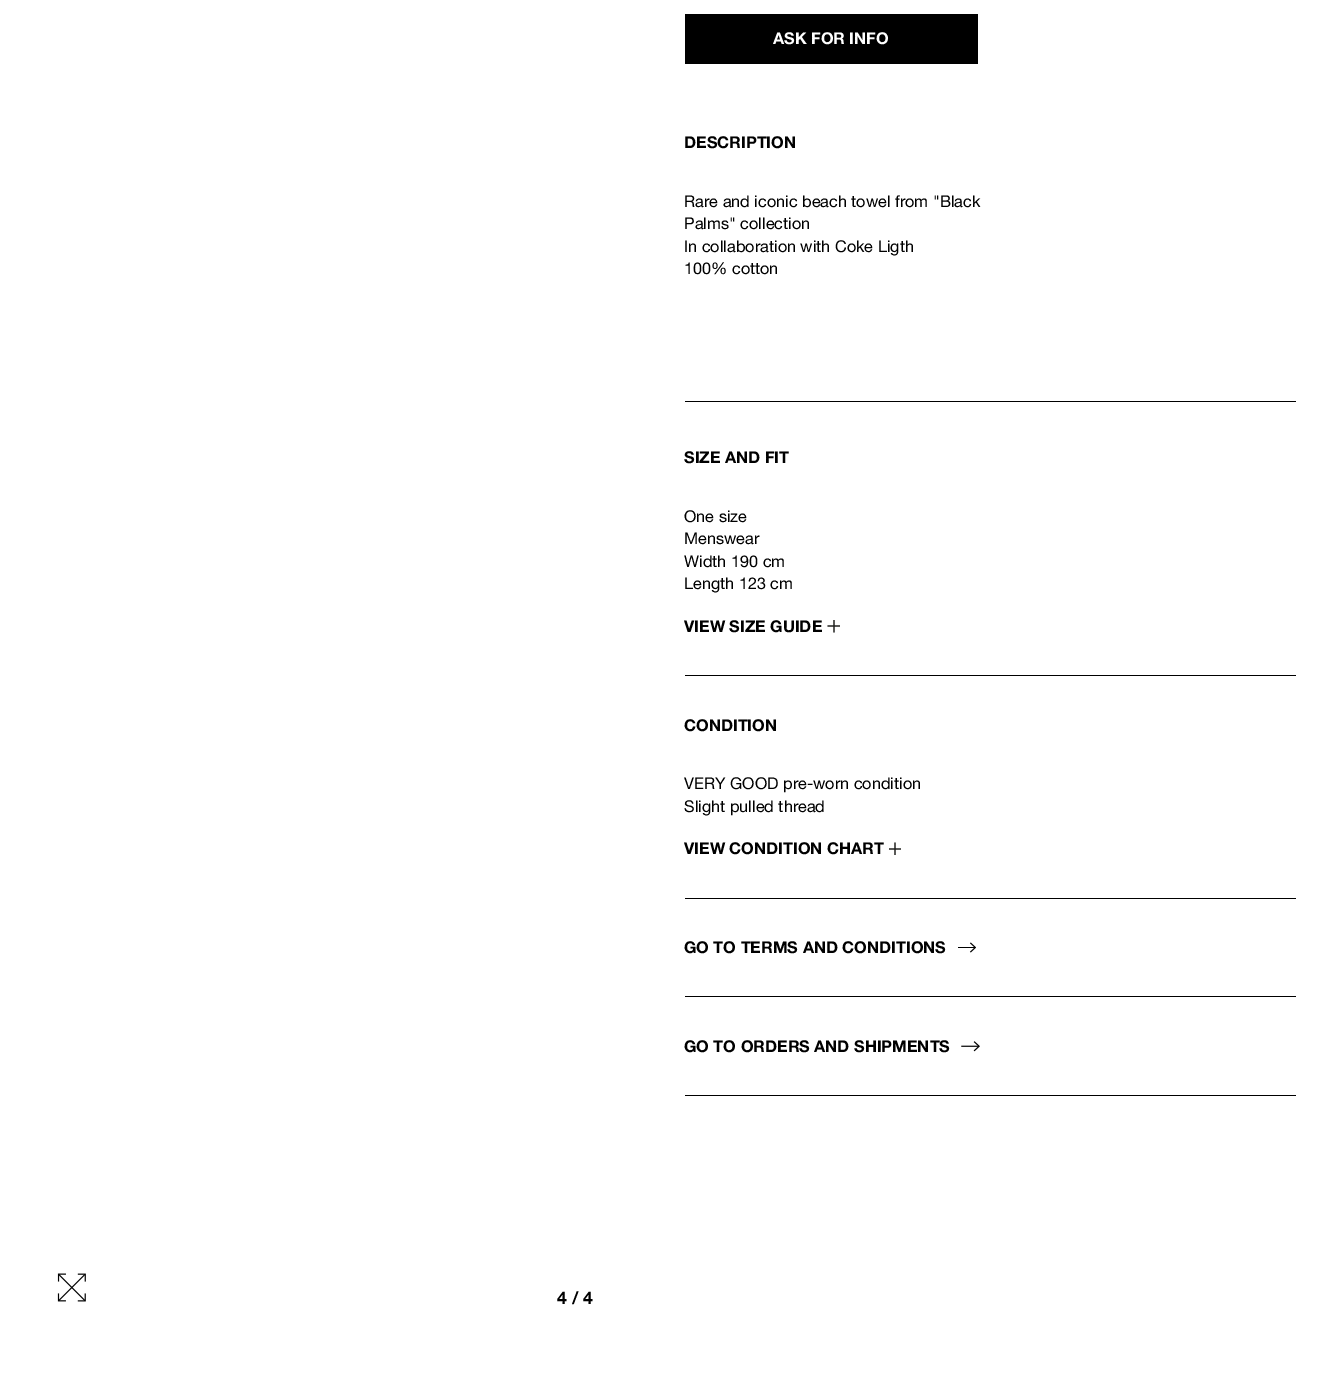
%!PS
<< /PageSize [1321 1390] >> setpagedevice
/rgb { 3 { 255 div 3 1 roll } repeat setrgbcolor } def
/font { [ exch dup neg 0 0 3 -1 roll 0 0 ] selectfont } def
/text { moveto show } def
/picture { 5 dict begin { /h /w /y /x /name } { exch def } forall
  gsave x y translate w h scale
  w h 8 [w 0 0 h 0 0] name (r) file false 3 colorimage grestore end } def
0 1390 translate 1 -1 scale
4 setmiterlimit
255 255 255 rgb
0 0 1321 1390 rectfill
0 0 0 rgb
685 14 293 50 rectfill
685 401 611 1 rectfill
685 675 611 1 rectfill
29 29 27 rgb
1.2 setlinewidth
827.5 626 moveto 12.5 0 rlineto 834 620 moveto 0 12.5 rlineto stroke
0 0 0 rgb
685 898 611 1 rectfill
29 29 27 rgb
889 849 moveto 12 0 rlineto 895 842.5 moveto 0 12.5 rlineto stroke
0 0 0 rgb
685 996 611 1 rectfill
(img_01.rgb) 958 942 18 11 picture
685 1095 611 1 rectfill
(img_02.rgb) 961 1041 19 11 picture
(img_03.rgb) 57 1273 29 29 picture
/HelveticaNeue-Bold 16.25 font
255 255 255 rgb
(ASK FOR INFO) 773 44 text
0 0 0 rgb
(DESCRIPTION) 684 148 text
/HelveticaNeue-Regular 16.25 font
(Rare and iconic beach towel from "Black) 684 207 text
(Palms" collection) 684 229 text
(In collaboration with Coke Ligth) 684 252 text
(100% cotton) 684 274 text
/HelveticaNeue-Bold 16.25 font
(SIZE AND FIT) 684 463 text
/HelveticaNeue-Regular 16.25 font
(One size) 684 522 text
(Menswear) 684 544 text
(Width 190 cm) 684 567 text
(Length 123 cm) 684 589 text
/HelveticaNeue-Bold 16.25 font
(VIEW SIZE GUIDE) 684 632 text
(CONDITION) 684 731 text
/HelveticaNeue-Regular 16.25 font
(VERY GOOD pre-worn condition) 684 789 text
(Slight pulled thread) 684 812 text
/HelveticaNeue-Bold 16.25 font
(VIEW CONDITION CHART) 684 854 text
(GO TO TERMS AND CONDITIONS) 684 953 text
(GO TO ORDERS AND SHIPMENTS) 684 1052 text
/HelveticaNeue-Bold 17.5 font
(4 / 4) 557 1304 text
showpage
